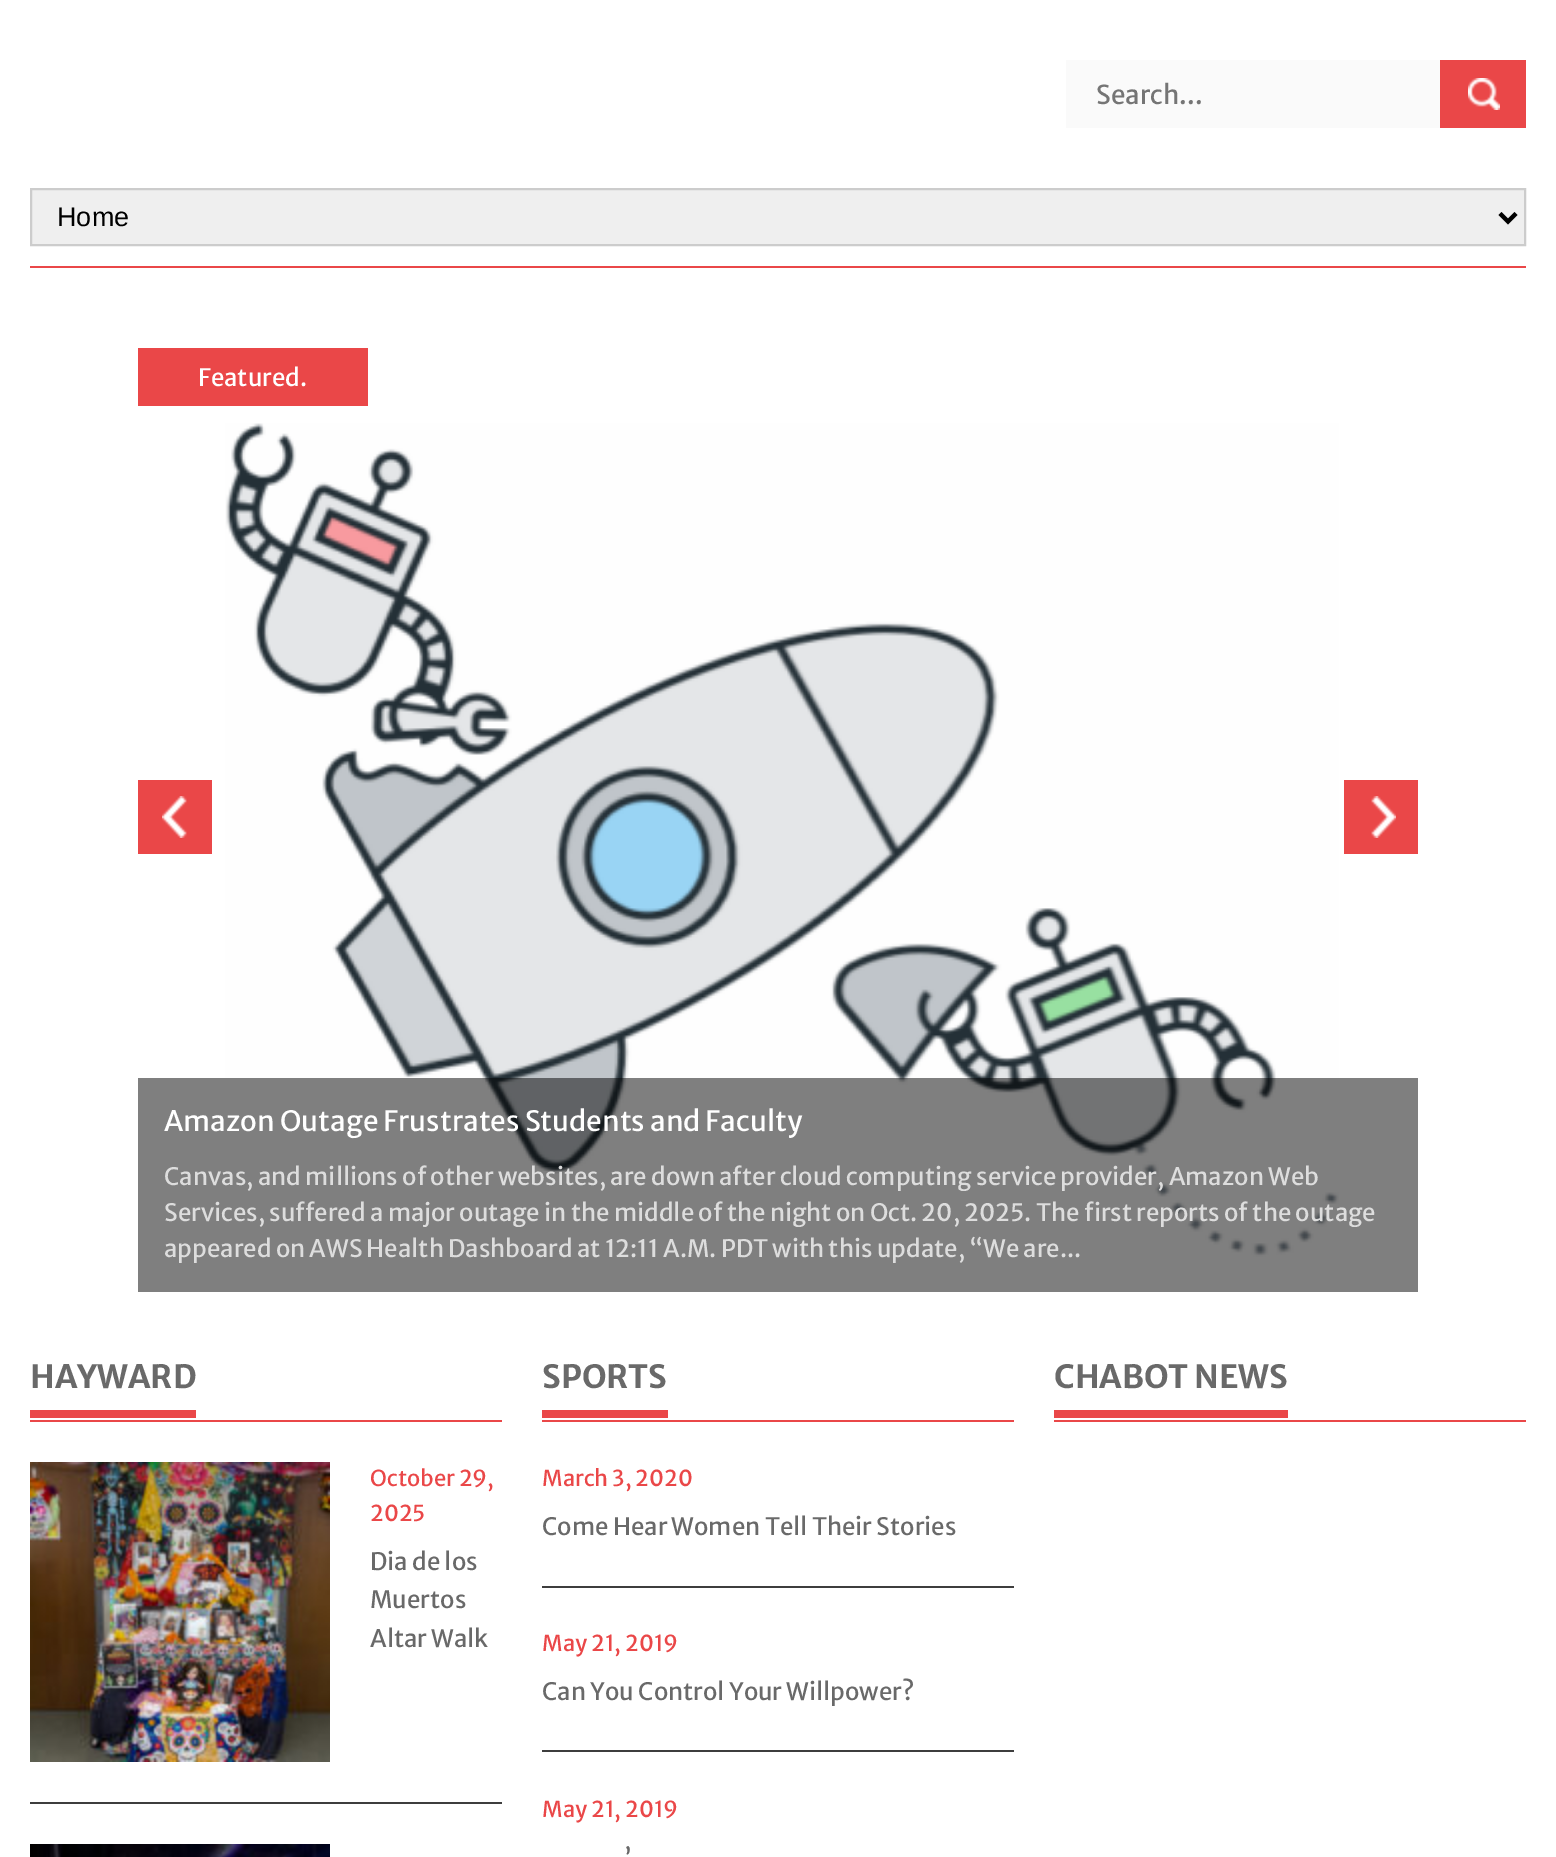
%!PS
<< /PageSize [1556 1857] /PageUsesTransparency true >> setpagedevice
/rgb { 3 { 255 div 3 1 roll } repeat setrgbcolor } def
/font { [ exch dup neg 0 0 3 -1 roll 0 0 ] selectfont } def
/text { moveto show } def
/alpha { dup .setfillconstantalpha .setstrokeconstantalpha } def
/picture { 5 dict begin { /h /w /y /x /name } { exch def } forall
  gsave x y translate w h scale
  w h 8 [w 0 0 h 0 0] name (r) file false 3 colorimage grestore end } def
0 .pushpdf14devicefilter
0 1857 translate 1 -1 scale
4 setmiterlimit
255 255 255 rgb
0 0 1556 1857 rectfill
250 250 250 rgb
1066 60 374 68 rectfill
234 71 72 rgb
1440 60 86 68 rectfill
(img_01.rgb) 1468 78 32 32 picture
30 266 1496 2 rectfill
239 239 239 rgb
31 189 moveto 1494 0 rlineto 0 56 rlineto -1494 0 rlineto closepath gsave fill grestore
204 204 204 rgb
2 setlinewidth
stroke
0 0 0 rgb
4 setlinewidth
1500 213.5 moveto 8 8 rlineto 8 -8 rlineto stroke
234 71 72 rgb
138 348 230 58 rectfill
138 780 74 74 rectfill
(img_02.rgb) 162 796 25 42 picture
1344 780 74 74 rectfill
(img_03.rgb) 1371 796 25 42 picture
(img_04.rgb) 225 423 1114 834 picture
0.5 alpha
0 0 0 rgb
138 1078 1280 214 rectfill
1 alpha
234 71 72 rgb
30 1420 472 2 rectfill
30 1410 166 8 rectfill
62 62 62 rgb
30 1802 472 2 rectfill
(img_05.rgb) 30 1462 300 300 picture
(img_06.rgb) 30 1844 300 13 picture
234 71 72 rgb
542 1420 472 2 rectfill
542 1410 126 8 rectfill
62 62 62 rgb
542 1586 472 2 rectfill
542 1750 472 2 rectfill
234 71 72 rgb
1054 1420 472 2 rectfill
1054 1410 234 8 rectfill
/MerriweatherSans-Regular 26 font
117 117 117 rgb
(Search...) 1096 104 text
/LiberationSans-Regular 27 font
0 0 0 rgb
(Home) 57 226 text
/MerriweatherSans-Regular 24 font
255 255 255 rgb
(Featured.) 198 386 text
/MerriweatherSans-Regular 28 font
(Amazon Outage Frustrates Students and Faculty) 164 1131 text
/MerriweatherSans-Regular 24 font
221 221 221 rgb
(Canvas, and millions of other websites, are down after cloud computing service provider, Amazon Web) 164 1185 text
(Services, suffered a major outage in the middle of the night on Oct. 20, 2025. The first reports of the outage) 164 1221 text
(appeared on AWS Health Dashboard at 12:11 A.M. PDT with this update, “We are...) 164 1257 text
/MerriweatherSans-Bold 32 font
105 105 105 rgb
(HAYWARD) 30 1388 text
/MerriweatherSans-Regular 22 font
234 71 72 rgb
(October 29,) 370 1486 text
(2025) 370 1521 text
/MerriweatherSans-Regular 24 font
105 105 105 rgb
(Dia de los) 370 1570 text
(Muertos) 370 1608 text
(Altar Walk) 370 1647 text
/MerriweatherSans-Bold 32 font
(SPORTS) 542 1388 text
/MerriweatherSans-Regular 22 font
234 71 72 rgb
(March 3, 2020) 542 1486 text
/MerriweatherSans-Regular 24 font
105 105 105 rgb
(Come Hear Women Tell Their Stories) 542 1535 text
/MerriweatherSans-Regular 22 font
234 71 72 rgb
(May 21, 2019) 542 1651 text
/MerriweatherSans-Regular 24 font
105 105 105 rgb
(Can You Control Your Willpower?) 542 1700 text
/MerriweatherSans-Regular 22 font
234 71 72 rgb
(May 21, 2019) 542 1817 text
/MerriweatherSans-Regular 24 font
105 105 105 rgb
(’) 625 1866 text
/MerriweatherSans-Bold 32 font
(CHABOT NEWS) 1054 1388 text
.poppdf14devicefilter showpage
